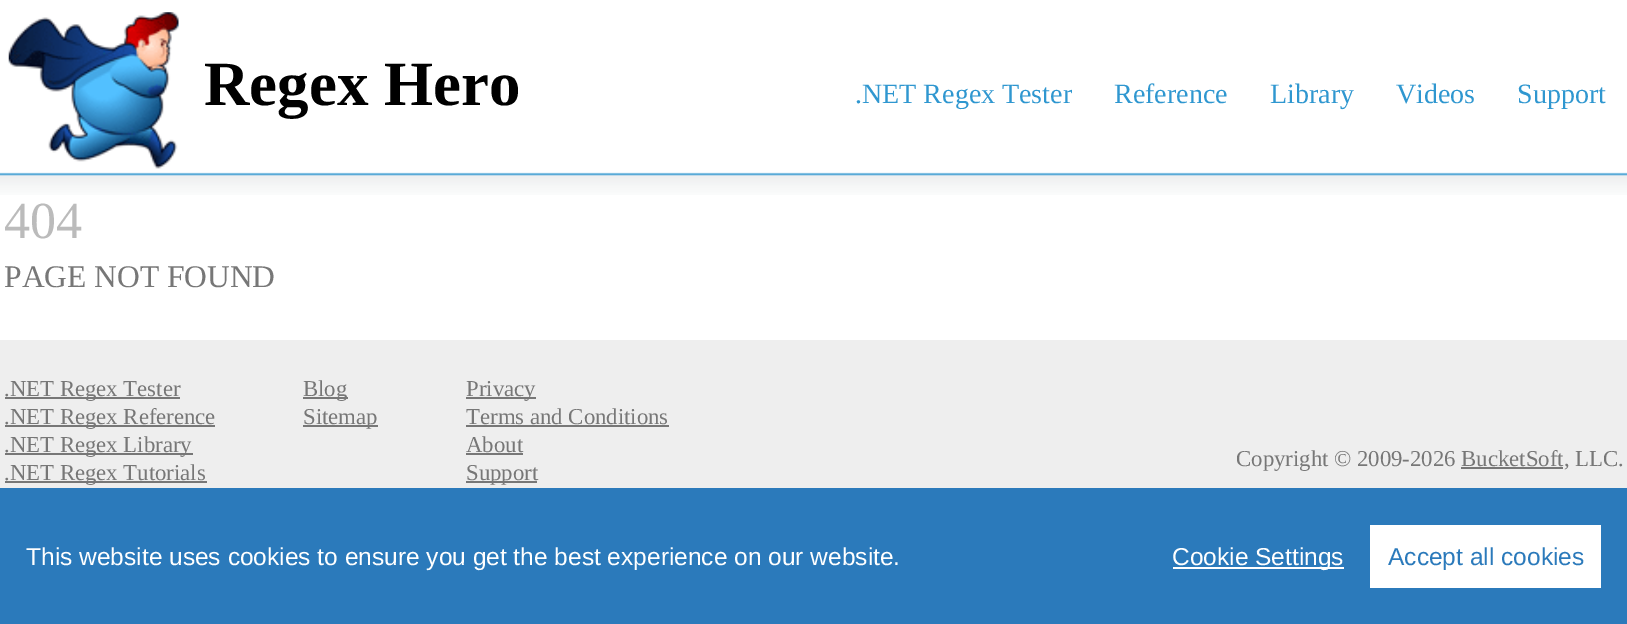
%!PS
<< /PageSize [1627 624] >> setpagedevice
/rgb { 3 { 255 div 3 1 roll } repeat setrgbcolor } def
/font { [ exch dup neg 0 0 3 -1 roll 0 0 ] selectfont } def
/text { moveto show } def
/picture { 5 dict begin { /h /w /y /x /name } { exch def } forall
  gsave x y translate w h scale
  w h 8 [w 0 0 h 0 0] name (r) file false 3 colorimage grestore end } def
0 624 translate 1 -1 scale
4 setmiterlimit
255 255 255 rgb
0 0 1627 624 rectfill
(img_01.rgb) 0 172 1627 23 picture
(img_02.rgb) 8 12 171 157 picture
238 238 238 rgb
0 340 1627 148 rectfill
119 119 119 rgb
5 397 175 2 rectfill
5 425 210 2 rectfill
5 453 188 2 rectfill
5 481 202 2 rectfill
303 397 45 2 rectfill
303 425 75 2 rectfill
466 397 70 2 rectfill
466 425 203 2 rectfill
466 453 57 2 rectfill
466 481 71 2 rectfill
1461 467 102 2 rectfill
43 122 187 rgb
0 488 1627 136 rectfill
255 255 255 rgb
1173 567 171 2 rectfill
1370 525 231 63 rectfill
/LiberationSerif-Bold 63 font
0 0 0 rgb
(Regex Hero) 204 105 text
/LiberationSerif-Regular 28 font
47 151 208 rgb
(.NET Regex Tester) 855 103 text
(Reference) 1114 103 text
(Library) 1270 103 text
(Videos) 1396 103 text
(Support) 1517 103 text
/LiberationSerif-Regular 52 font
187 187 187 rgb
(404) 4 238 text
/LiberationSerif-Regular 31.5 font
119 119 119 rgb
(PAGE NOT FOUND) 4 287 text
/LiberationSerif-Regular 22.75 font
(.NET Regex Tester) 4 396 text
(.NET Regex Reference) 4 424 text
(.NET Regex Library) 4 452 text
(.NET Regex Tutorials) 4 480 text
(Blog) 303 396 text
(Sitemap) 303 424 text
(Privacy) 466 396 text
(Terms and Conditions) 466 424 text
(About) 466 452 text
(Support) 466 480 text
(Copyright © 2009-2026 BucketSoft, LLC.) 1236 466 text
/LiberationSans-Regular 24.5 font
255 255 255 rgb
(This website uses cookies to ensure you get the best experience on our website.) 26 565 text
(Cookie Settings) 1172 565 text
43 122 187 rgb
(Accept all cookies) 1388 565 text
showpage
